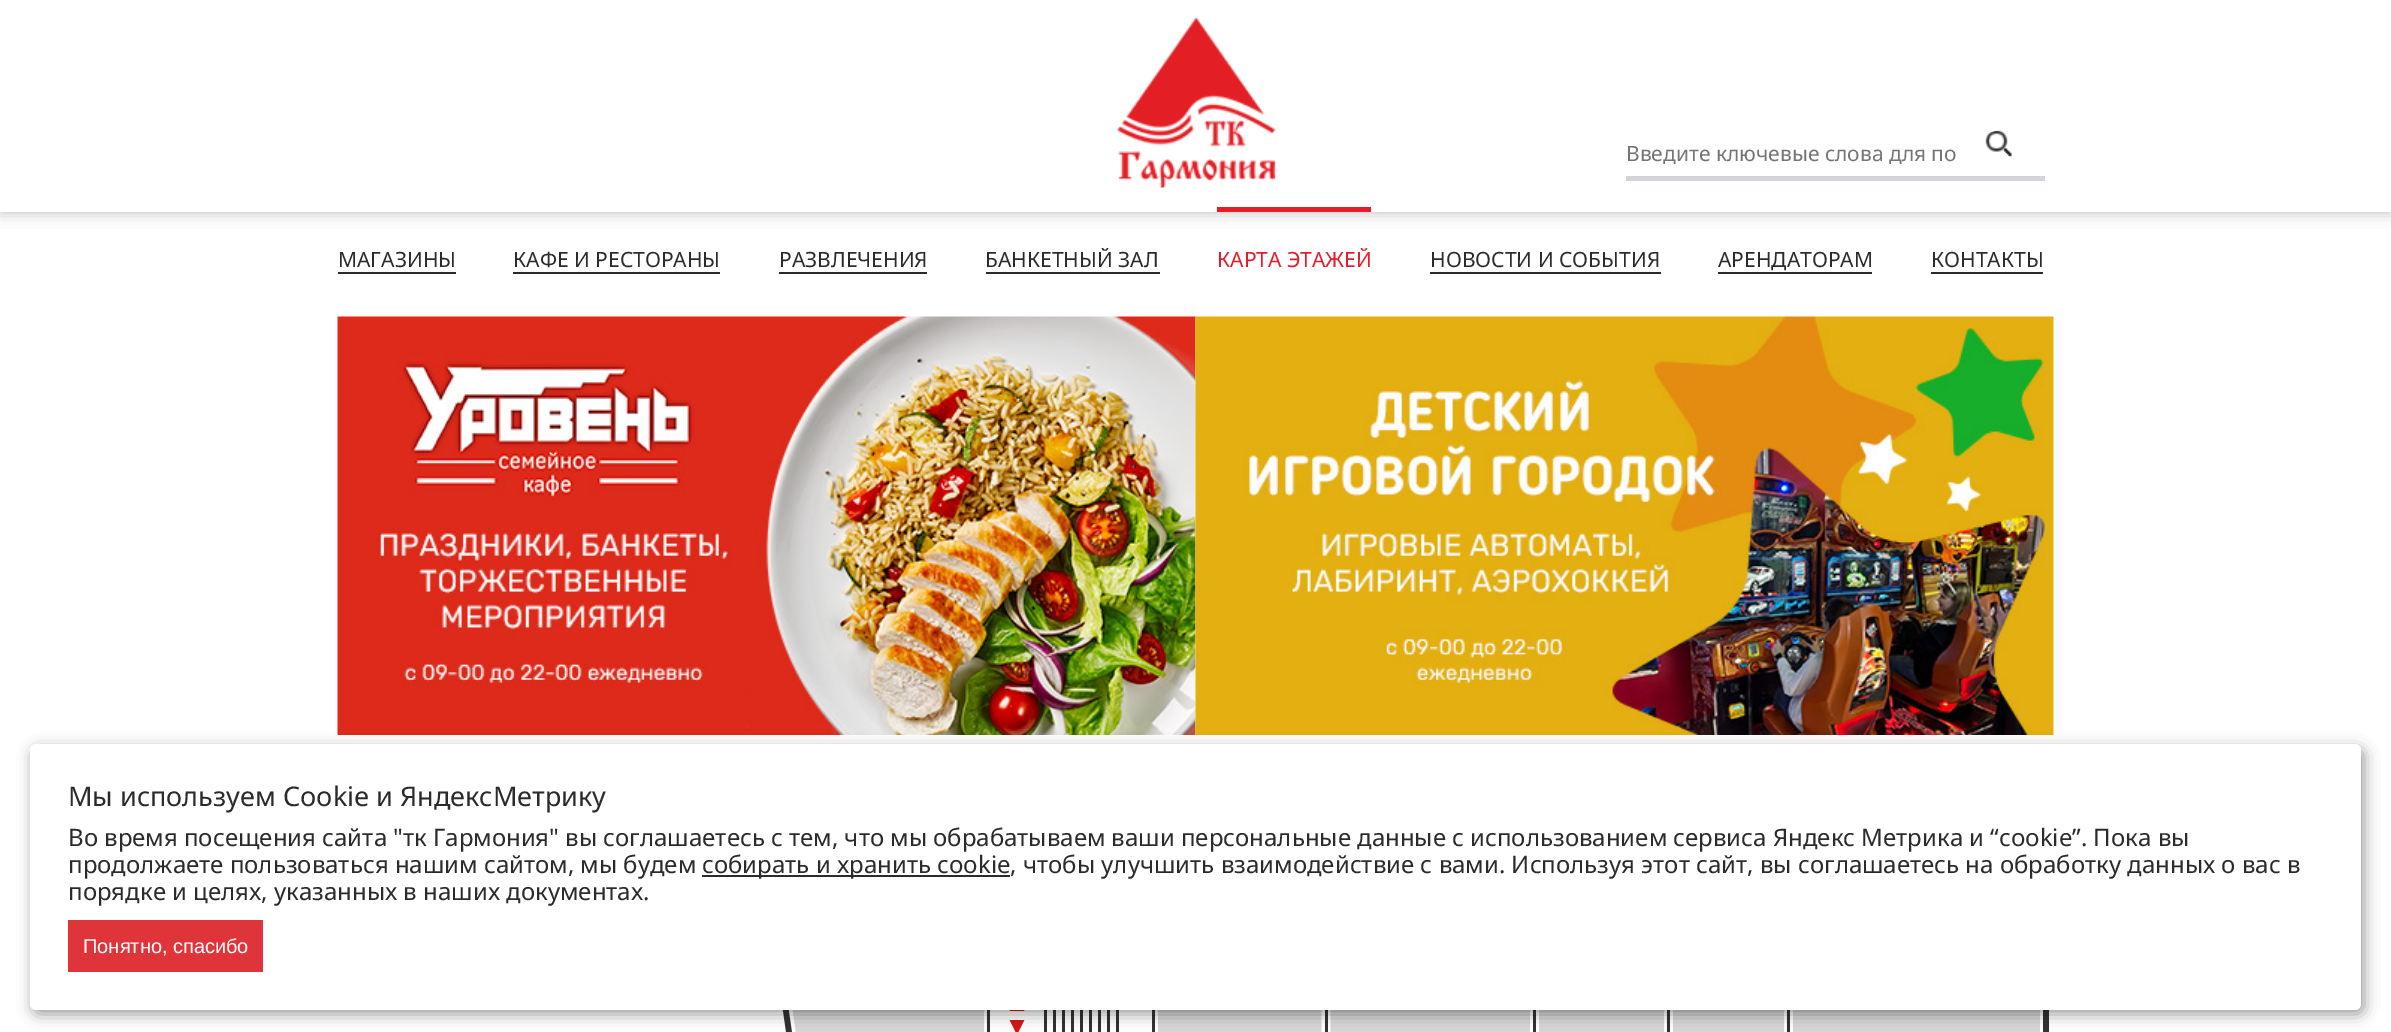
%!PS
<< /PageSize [2391 1032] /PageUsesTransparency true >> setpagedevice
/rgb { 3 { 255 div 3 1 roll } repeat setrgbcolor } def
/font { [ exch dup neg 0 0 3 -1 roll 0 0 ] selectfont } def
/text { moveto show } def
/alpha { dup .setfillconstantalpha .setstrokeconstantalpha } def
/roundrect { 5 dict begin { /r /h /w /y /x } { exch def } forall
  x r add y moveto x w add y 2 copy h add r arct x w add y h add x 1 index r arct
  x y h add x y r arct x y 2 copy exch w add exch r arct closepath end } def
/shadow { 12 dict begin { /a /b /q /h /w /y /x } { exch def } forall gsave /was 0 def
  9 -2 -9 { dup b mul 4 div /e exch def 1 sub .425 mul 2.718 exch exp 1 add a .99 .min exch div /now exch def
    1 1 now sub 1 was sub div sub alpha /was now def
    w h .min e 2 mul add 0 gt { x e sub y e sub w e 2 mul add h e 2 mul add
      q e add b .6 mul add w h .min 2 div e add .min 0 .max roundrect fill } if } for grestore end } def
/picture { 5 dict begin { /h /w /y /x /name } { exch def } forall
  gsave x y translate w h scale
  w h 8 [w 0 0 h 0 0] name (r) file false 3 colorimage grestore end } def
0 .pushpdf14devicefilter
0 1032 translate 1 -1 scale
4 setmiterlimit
255 255 255 rgb
0 0 2391 1032 rectfill
0 0 0 rgb
0 0 2391 212 0 7.5 0.26 shadow
255 255 255 rgb
0 0 2391 212 rectfill
(img_01.rgb) 1117 17 159 171 picture
209 213 218 rgb
1626 176 419 5 rectfill
(img_02.rgb) 1985 130 27 27 picture
43 43 43 rgb
338 272 118 2 rectfill
513 272 207 2 rectfill
779 272 148 2 rectfill
986 272 174 2 rectfill
230 28 40 rgb
1217 207 154 5 rectfill
43 43 43 rgb
1430 272 231 2 rectfill
1718 272 154 2 rectfill
1931 272 112 2 rectfill
(img_03.rgb) 337 316 859 419 picture
(img_04.rgb) 1195 316 859 419 picture
(img_05.rgb) 782 1010 1267 22 picture
0 0 0 rgb
33 749 2331 265 6 7.5 0.4 shadow
255 255 255 rgb
30 744 2331 266 6 roundrect fill
43 43 43 rgb
702 875 308 2 rectfill
223 52 58 rgb
68 920 195 52 rectfill
/NotoSans-Regular 21 font
117 117 117 rgb
(Введите ключевые слова для по) 1626 161 text
43 43 43 rgb
(МАГАЗИНЫ) 338 267 text
(КАФЕ И РЕСТОРАНЫ) 513 267 text
(РАЗВЛЕЧЕНИЯ) 779 267 text
(БАНКЕТНЫЙ ЗАЛ) 985 267 text
230 28 40 rgb
(КАРТА ЭТАЖЕЙ) 1217 267 text
43 43 43 rgb
(НОВОСТИ И СОБЫТИЯ) 1430 267 text
(АРЕНДАТОРАМ) 1718 267 text
(КОНТАКТЫ) 1931 267 text
/NotoSans-Regular 27 font
(Мы используем Сookie и ЯндексМетрику) 68 806 text
/NotoSans-Regular 24 font
(Во время посещения сайта "тк Гармония" вы соглашаетесь с тем, что мы обрабатываем ваши персональные данные с использованием сервиса Яндекс Метрика и “cookie”. Пока вы) 68 846 text
(продолжаете пользоваться нашим сайтом, мы будем) 68 873 text
(собирать и хранить cookie, чтобы улучшить взаимодействие с вами. Используя этот сайт, вы соглашаетесь на обработку данных о вас в) 702 873 text
(порядке и целях, указанных в наших документах.) 68 900 text
/LiberationSans-Regular 20 font
255 255 255 rgb
(Понятно, спасибо) 83 953 text
.poppdf14devicefilter showpage
